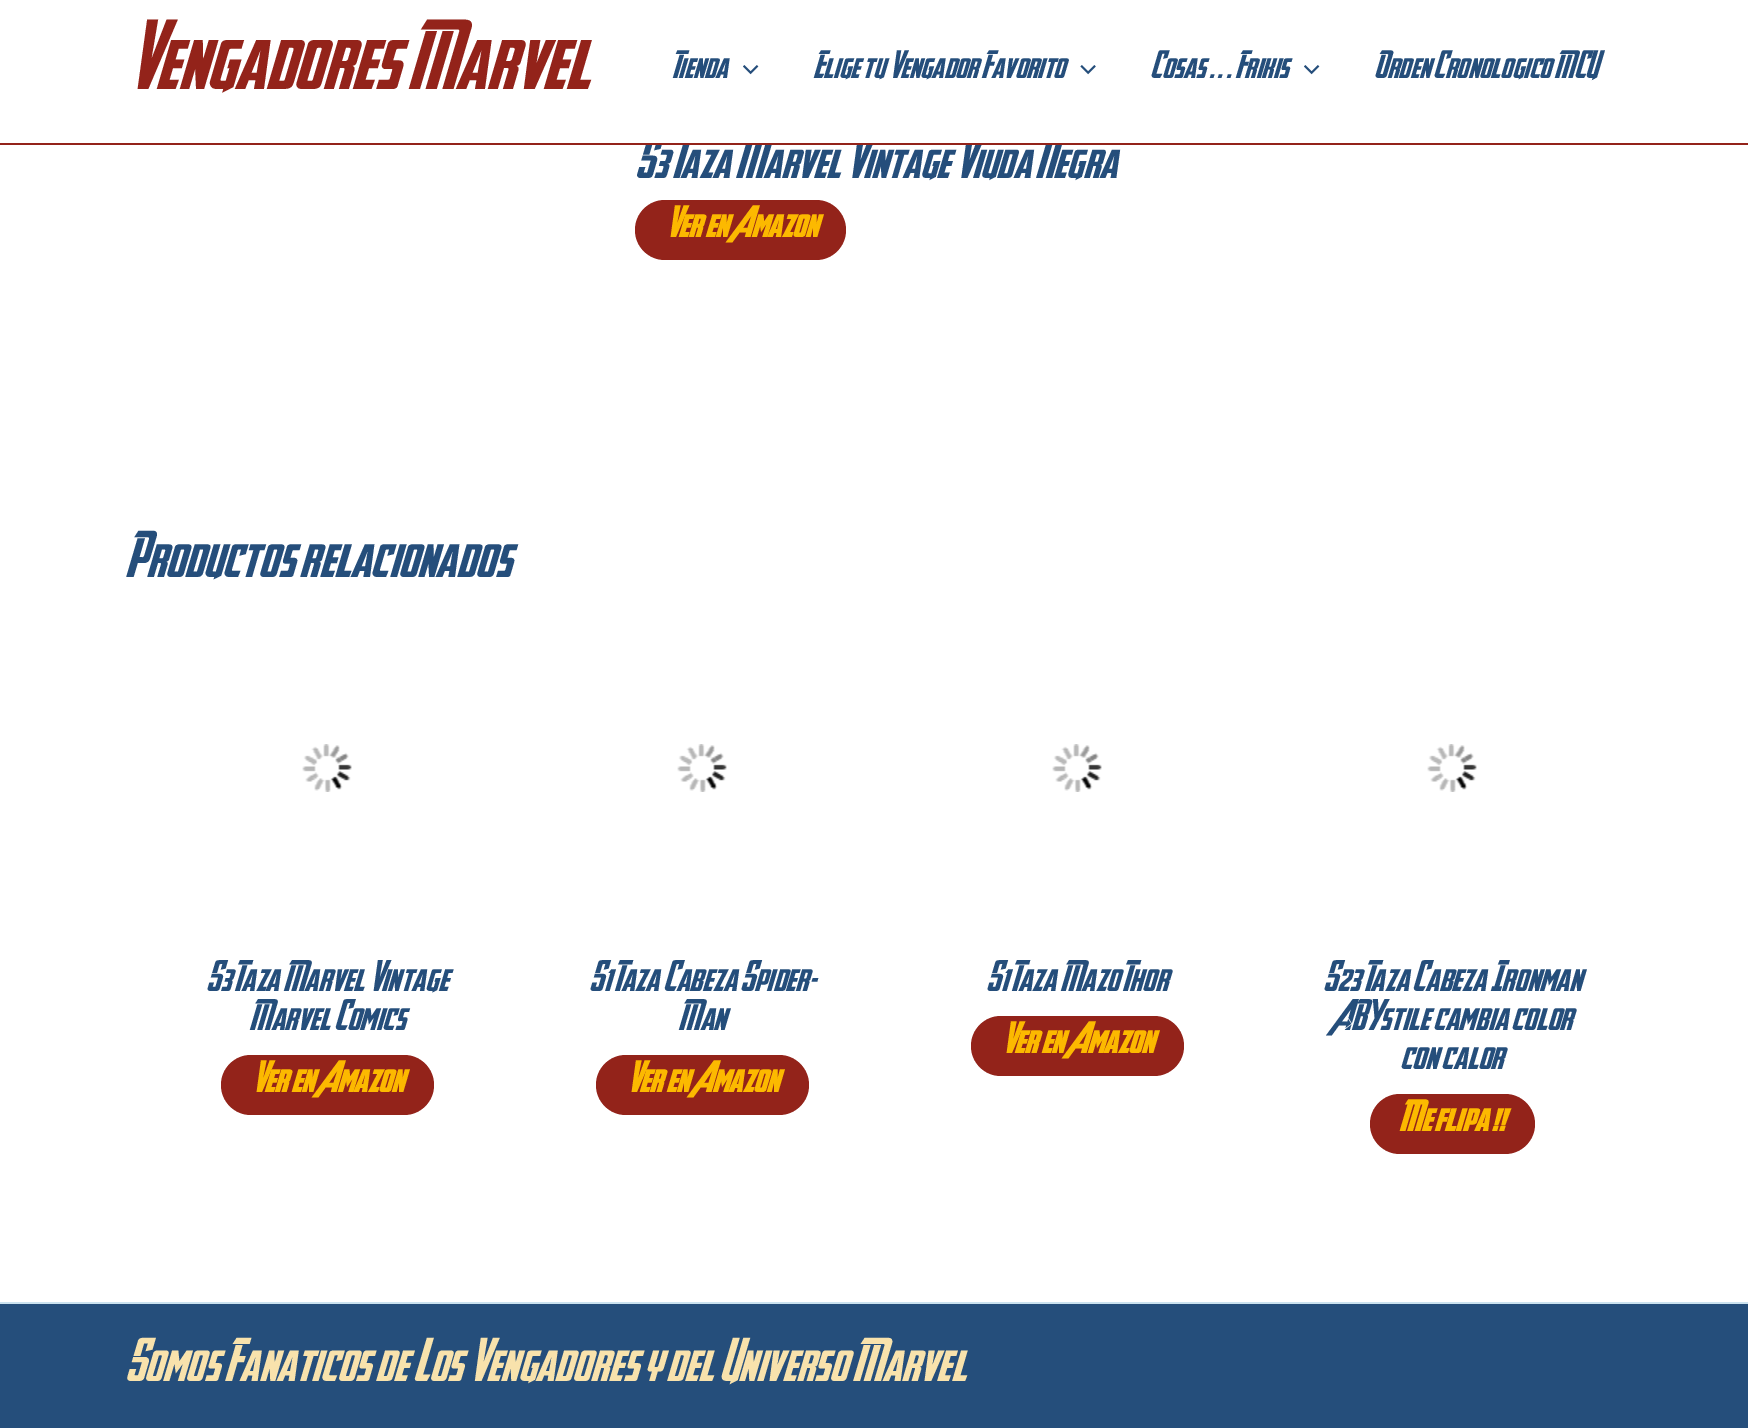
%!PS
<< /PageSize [1748 1428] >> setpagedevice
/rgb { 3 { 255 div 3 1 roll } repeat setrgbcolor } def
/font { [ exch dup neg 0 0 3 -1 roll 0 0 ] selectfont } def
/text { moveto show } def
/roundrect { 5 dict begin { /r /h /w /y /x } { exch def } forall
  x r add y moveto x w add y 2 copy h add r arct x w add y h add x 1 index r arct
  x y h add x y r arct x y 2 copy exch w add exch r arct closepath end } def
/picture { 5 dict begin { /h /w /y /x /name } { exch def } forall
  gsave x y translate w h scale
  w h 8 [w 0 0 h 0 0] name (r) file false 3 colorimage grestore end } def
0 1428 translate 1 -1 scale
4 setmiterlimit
255 255 255 rgb
0 0 1748 1428 rectfill
(img_01.rgb) 743 65 16 10 picture
(img_02.rgb) 1080 65 16 10 picture
(img_01.rgb) 1304 65 16 10 picture
147 35 26 rgb
635 200 211 60 30 roundrect fill
(img_03.rgb) 302 744 50 48 picture
221 1055 213 60 30 roundrect fill
(img_04.rgb) 677 744 50 48 picture
596 1055 213 60 30 roundrect fill
(img_03.rgb) 1052 744 50 48 picture
971 1016 213 60 30 roundrect fill
(img_04.rgb) 1427 744 50 48 picture
1370 1094 165 60 30 roundrect fill
37 78 123 rgb
0 1304 1748 124 rectfill
203 226 239 rgb
0 1302 1748 2 rectfill
/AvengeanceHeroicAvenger-Regular 67.5 font
147 35 26 rgb
(Vengadores Marvel) 125 89 text
/AvengeanceHeroicAvenger-Regular 27 font
37 78 123 rgb
(Tienda) 672 78 text
(Elige tu Vengador Favorito) 813 78 text
(Cosas . . . Frikis) 1150 78 text
(Orden Cronologico MCU) 1374 78 text
/AvengeanceHeroicAvenger-Regular 39 font
(S3 Taza Marvel Vintage Viuda Negra) 635 178 text
147 35 26 rgb
0 143 1748 2 rectfill
255 255 255 rgb
645 137 418 6 rectfill
/AvengeanceHeroicAvenger-Bold 30 font
252 185 0 rgb
(Ver en Amazon) 665 237 text
/AvengeanceHeroicAvenger-Regular 45 font
37 78 123 rgb
(Productos relacionados) 125 577 text
/AvengeanceHeroicAvenger-Regular 30 font
(S3 Taza Marvel Vintage) 206 991 text
(Marvel Comics) 249 1030 text
/AvengeanceHeroicAvenger-Bold 30 font
252 185 0 rgb
(Ver en Amazon) 251 1092 text
/AvengeanceHeroicAvenger-Regular 30 font
37 78 123 rgb
(S1 Taza Cabeza Spider-) 589 991 text
(Man) 678 1030 text
/AvengeanceHeroicAvenger-Bold 30 font
252 185 0 rgb
(Ver en Amazon) 626 1092 text
/AvengeanceHeroicAvenger-Regular 30 font
37 78 123 rgb
(S1 Taza Mazo Thor) 986 991 text
/AvengeanceHeroicAvenger-Bold 30 font
252 185 0 rgb
(Ver en Amazon) 1001 1053 text
/AvengeanceHeroicAvenger-Regular 30 font
37 78 123 rgb
(S23 Taza Cabeza Ironman) 1323 991 text
(ABYstile cambia color) 1331 1030 text
(con calor) 1400 1069 text
/AvengeanceHeroicAvenger-Bold 30 font
252 185 0 rgb
(Me flipa !!) 1399 1131 text
/AvengeanceHeroicAvenger-Regular 42 font
248 226 172 rgb
(Somos Fanaticos de Los Vengadores y del Universo Marvel) 125 1381 text
showpage
